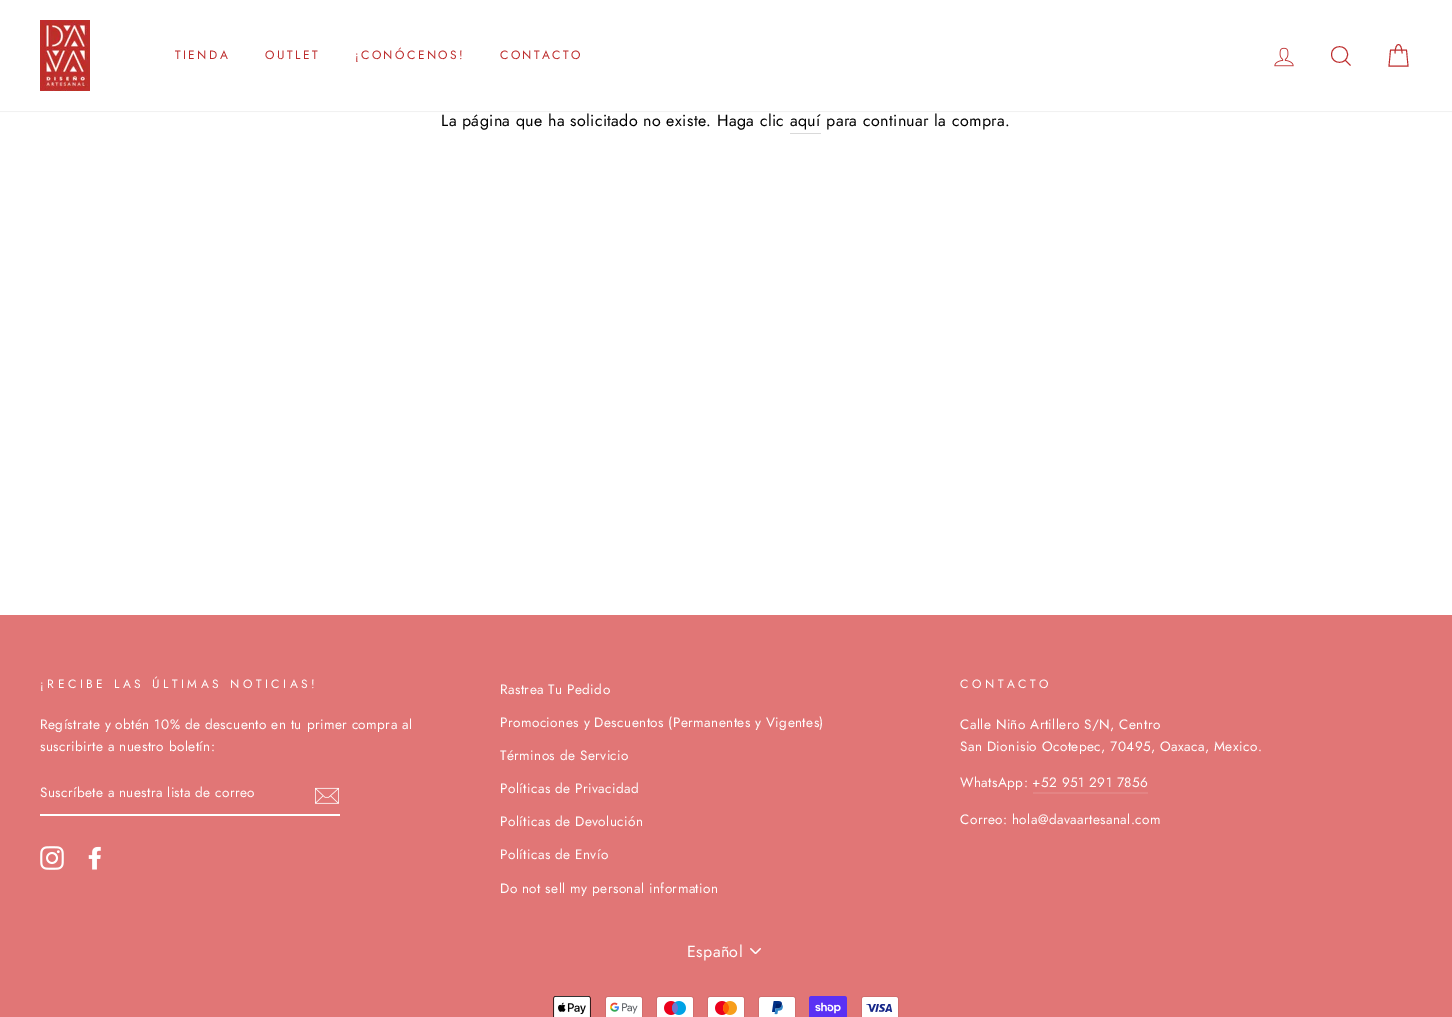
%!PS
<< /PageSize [1452 1017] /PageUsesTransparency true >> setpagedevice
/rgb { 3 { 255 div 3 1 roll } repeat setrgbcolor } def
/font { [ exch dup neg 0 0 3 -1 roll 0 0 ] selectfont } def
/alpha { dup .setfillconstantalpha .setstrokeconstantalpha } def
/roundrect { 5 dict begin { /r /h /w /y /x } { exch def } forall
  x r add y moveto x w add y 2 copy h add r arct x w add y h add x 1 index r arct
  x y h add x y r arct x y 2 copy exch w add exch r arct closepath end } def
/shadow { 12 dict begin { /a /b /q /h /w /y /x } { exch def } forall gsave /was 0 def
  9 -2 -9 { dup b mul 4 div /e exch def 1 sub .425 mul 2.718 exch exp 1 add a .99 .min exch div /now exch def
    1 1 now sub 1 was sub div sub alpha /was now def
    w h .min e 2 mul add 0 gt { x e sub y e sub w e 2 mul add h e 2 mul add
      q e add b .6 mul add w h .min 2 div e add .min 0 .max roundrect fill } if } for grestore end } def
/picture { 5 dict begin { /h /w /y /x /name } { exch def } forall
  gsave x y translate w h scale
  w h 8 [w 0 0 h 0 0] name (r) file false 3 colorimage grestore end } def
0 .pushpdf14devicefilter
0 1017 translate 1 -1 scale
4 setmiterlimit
255 255 255 rgb
0 0 1452 1017 rectfill
0 0 0 rgb
0 0 1452 111 0 0.5 0.2 shadow
255 255 255 rgb
0 0 1452 111 rectfill
(img_01.rgb) 40 20 50 71 picture
(img_02.rgb) 1274 47 20 20 picture
189 45 45 rgb
0.9 setlinewidth
1347.5 54.5 moveto 0 10.5 -16 10.5 -16 0 rcurveto 0 -10.5 16 -10.5 16 0 rcurveto closepath 1350.5 65.5 moveto -5 -5 rlineto stroke
1395 53.5 moveto 0 -12 7 -12 7 0 rcurveto 1390.5 50 moveto 16 0 rlineto 1.5 16 rlineto -19 0 rlineto closepath stroke
217 217 217 rgb
790 133 31 1 rectfill
225 118 118 rgb
0 615 1452 402 rectfill
255 255 255 rgb
40 814 300 2 rectfill
(img_03.rgb) 315 787 24 17 picture
(img_04.rgb) 40 846 24 24 picture
(img_05.rgb) 88 846 13 24 picture
228 132 132 rgb
1033 792 115 2 rectfill
(img_06.rgb) 750 948 11 6 picture
(img_07.rgb) 553 996 38 21 picture
(img_08.rgb) 605 996 38 21 picture
(img_09.rgb) 656 996 38 21 picture
(img_10.rgb) 707 996 38 21 picture
(img_11.rgb) 758 996 38 21 picture
(img_12.rgb) 809 996 38 21 picture
(img_13.rgb) 861 996 38 21 picture
/Jost-Regular 12 font
189 45 45 rgb
175 59 moveto 2.4 0 (TIENDA) ashow
265 59 moveto 2.4 0 (OUTLET) ashow
355 59 moveto 2.4 0 (¡CONÓCENOS!) ashow
500 59 moveto 2.4 0 (CONTACTO) ashow
/Jost-Regular 16 font
0 0 0 rgb
441 126 moveto 0.4 0 (La página que ha solicitado no existe. Haga clic aquí) ashow
826 126 moveto 0.4 0 (para continuar la compra.) ashow
/Jost-Regular 12 font
255 255 255 rgb
40 688 moveto 3.6 0 (¡RECIBE LAS ÚLTIMAS NOTICIAS!) ashow
/Jost-Regular 13.6 font
40 729 moveto 0.4 0 (Regístrate y obtén 10% de descuento en tu primer compra al) ashow
40 751 moveto 0.4 0 (suscribirte a nuestro boletín:) ashow
40 797 moveto 0.35 0 (Suscríbete a nuestra lista de correo) ashow
500 694 moveto 0.4 0 (Rastrea Tu Pedido) ashow
500 727 moveto 0.4 0 (Promociones y Descuentos \(Permanentes y Vigentes\)) ashow
500 760 moveto 0.4 0 (Términos de Servicio) ashow
500 793 moveto 0.4 0 (Políticas de Privacidad) ashow
500 826 moveto 0.4 0 (Políticas de Devolución) ashow
500 859 moveto 0.4 0 (Políticas de Envío) ashow
500 893 moveto 0.4 0 (Do not sell my personal information) ashow
/Jost-Regular 12 font
960 688 moveto 3.6 0 (CONTACTO) ashow
/Jost-Regular 13.6 font
960 729 moveto 0.4 0 (Calle Niño Artillero S/N, Centro) ashow
960 751 moveto 0.4 0 (San Dionisio Ocotepec, 70495, Oaxaca, Mexico.) ashow
960 787 moveto 0.4 0 (WhatsApp: +52 951 291 7856) ashow
960 824 moveto 0.4 0 (Correo: hola@davaartesanal.com) ashow
/Jost-Regular 16 font
687 957 moveto 0.4 0 (Español) ashow
.poppdf14devicefilter showpage
